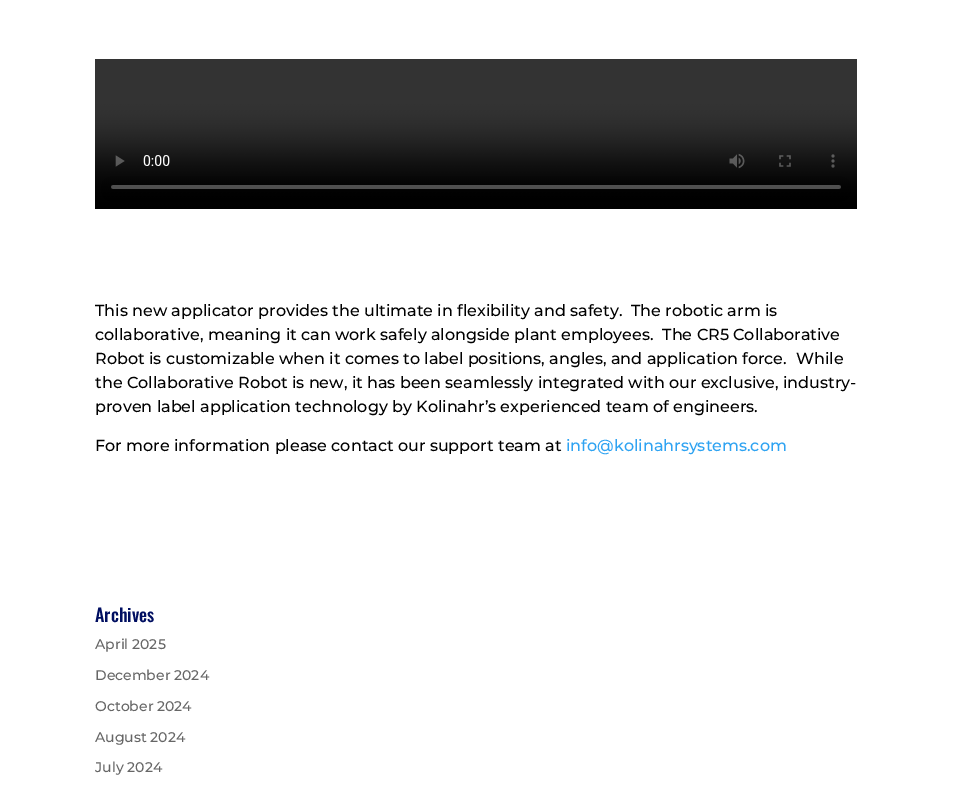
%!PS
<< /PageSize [953 800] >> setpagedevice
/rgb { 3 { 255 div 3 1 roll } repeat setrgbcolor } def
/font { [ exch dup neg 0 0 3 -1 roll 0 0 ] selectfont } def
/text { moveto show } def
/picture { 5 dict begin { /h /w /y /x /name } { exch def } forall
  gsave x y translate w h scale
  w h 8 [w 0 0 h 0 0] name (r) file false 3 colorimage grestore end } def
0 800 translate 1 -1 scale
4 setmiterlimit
255 255 255 rgb
0 0 953 800 rectfill
(img_01.rgb) 95 59 762 150 picture
/Montserrat-Medium 16 font
0 0 0 rgb
(This new applicator provides the ultimate in flexibility and safety.  The robotic arm is) 95 316 text
(collaborative, meaning it can work safely alongside plant employees.  The CR5 Collaborative) 95 340 text
(Robot is customizable when it comes to label positions, angles, and application force.) 95 364 text
(While) 796 364 text
(the Collaborative Robot is new, it has been seamlessly integrated with our exclusive, industry-) 95 388 text
(proven label application technology by Kolinahr’s experienced team of engineers.) 95 412 text
(For more information please contact our support team at) 95 451 text
46 163 242 rgb
(info@kolinahrsystems.com) 566 451 text
/Oswald-Medium 18 font
0 14 97 rgb
(Archives) 95 622 text
/Montserrat-Medium 14 font
102 102 102 rgb
(April 2025) 95 649 text
(December 2024) 95 680 text
(October 2024) 95 711 text
(August 2024) 95 742 text
(July 2024) 95 772 text
showpage
